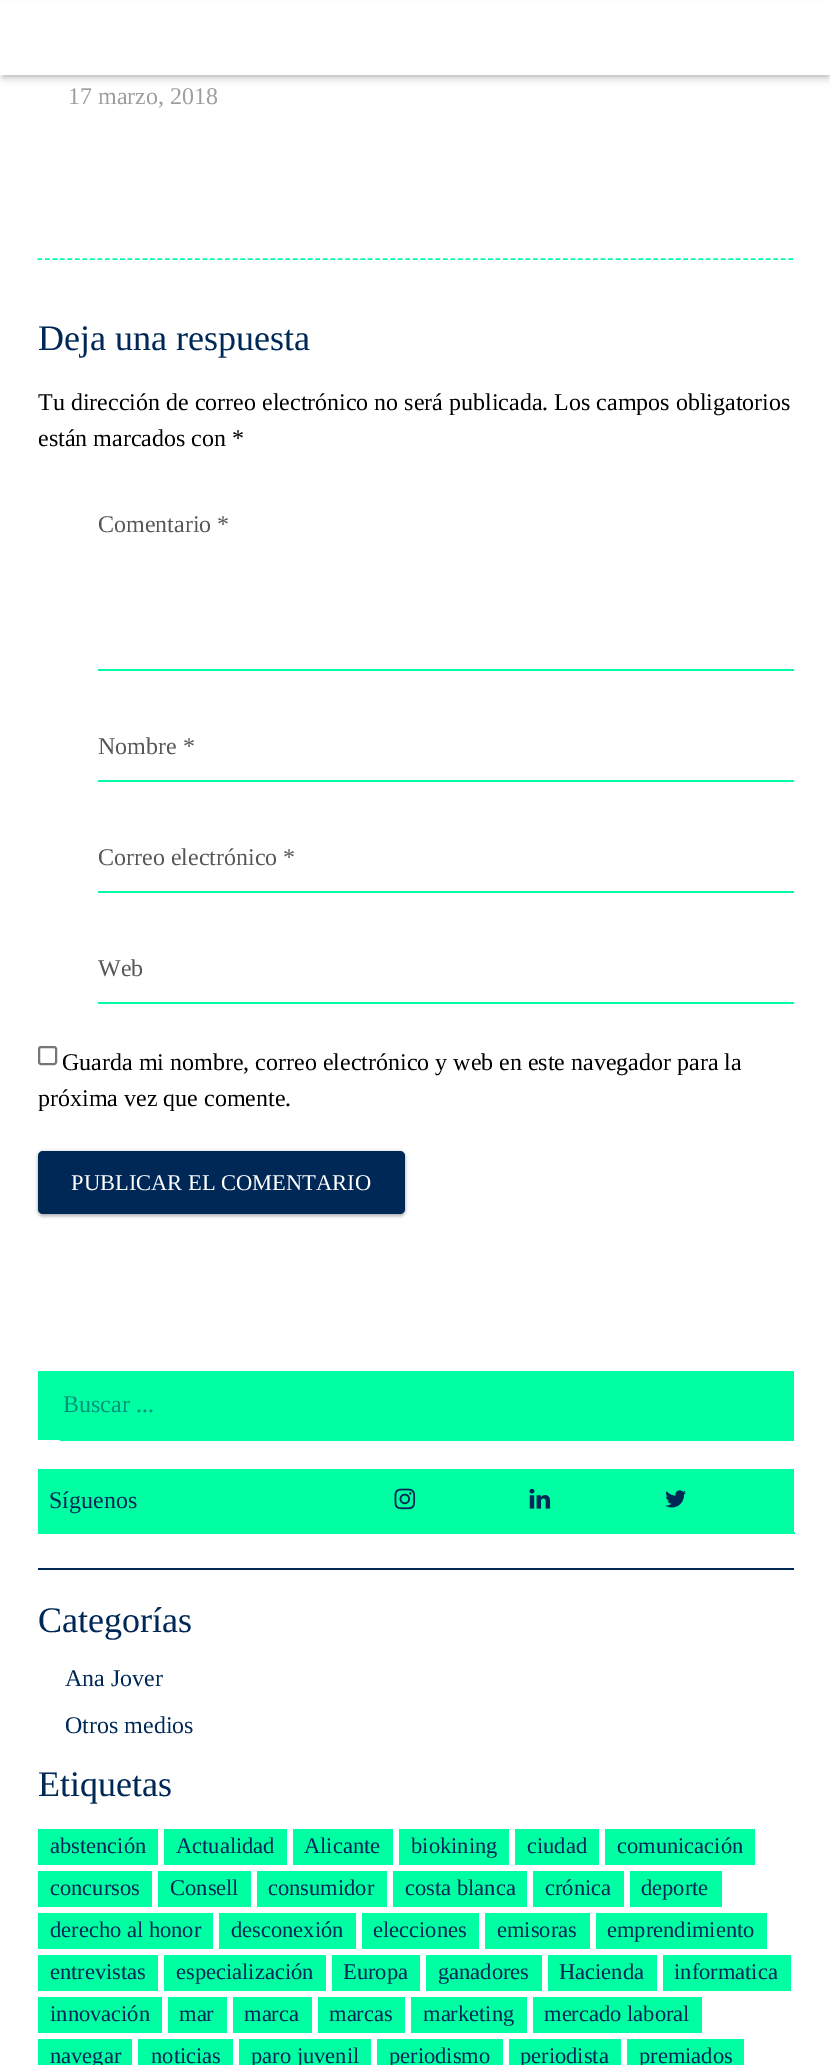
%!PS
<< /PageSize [830 2065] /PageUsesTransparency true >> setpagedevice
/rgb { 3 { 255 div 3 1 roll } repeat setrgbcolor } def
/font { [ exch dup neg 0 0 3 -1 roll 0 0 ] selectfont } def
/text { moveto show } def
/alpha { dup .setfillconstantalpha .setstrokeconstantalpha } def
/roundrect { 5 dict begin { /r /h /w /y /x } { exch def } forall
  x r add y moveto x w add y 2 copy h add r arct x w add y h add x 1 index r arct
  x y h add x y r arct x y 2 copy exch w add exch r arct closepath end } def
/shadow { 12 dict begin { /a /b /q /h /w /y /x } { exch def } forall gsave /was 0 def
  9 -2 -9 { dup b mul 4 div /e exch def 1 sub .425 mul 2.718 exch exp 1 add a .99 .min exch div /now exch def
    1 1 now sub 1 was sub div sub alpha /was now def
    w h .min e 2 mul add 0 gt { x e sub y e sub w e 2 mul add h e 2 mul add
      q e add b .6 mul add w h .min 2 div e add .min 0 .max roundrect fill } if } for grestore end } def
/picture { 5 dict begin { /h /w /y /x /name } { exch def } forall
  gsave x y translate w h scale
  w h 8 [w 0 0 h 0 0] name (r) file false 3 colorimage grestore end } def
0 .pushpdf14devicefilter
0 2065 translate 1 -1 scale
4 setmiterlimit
255 255 255 rgb
0 0 830 2065 rectfill
0 0 0 rgb
2 5 828 72 0 1 0.05 shadow
3 9 825 69 0 4 0.22 shadow
255 255 255 rgb
0 2 830 73 rectfill
0 255 163 rgb
1.5 setlinewidth
[4.5 3.01] 0 setdash
37.5 259 moveto 756 0 rlineto stroke
98 669 696 2 rectfill
98 780 696 2 rectfill
98 891 696 2 rectfill
98 1002 696 2 rectfill
118 118 118 rgb
2 setlinewidth
[] 0 setdash
39 1047 17 17 2 roundrect stroke
0 0 0 rgb
38 1152 367 63 5 2 0.3 shadow
38 1154 367 63 5 1 0.1 shadow
0 40 87 rgb
38 1151 367 63 5 roundrect fill
0 255 163 rgb
38 1371 756 69 rectfill
60 1440 734 1 rectfill
38 1469 756 63 rectfill
(img_01.rgb) 394 1488 22 22 picture
(img_02.rgb) 529 1488 22 21 picture
38 1532 757 2 rectfill
(img_03.rgb) 665 1490 21 18 picture
0 40 87 rgb
38 1568 756 2 rectfill
0 255 163 rgb
38 1829 120 36 rectfill
164 1829 123 36 rectfill
293 1829 100 36 rectfill
399 1829 110 36 rectfill
515 1829 84 36 rectfill
605 1829 150 36 rectfill
38 1871 114 36 rectfill
158 1871 93 36 rectfill
257 1871 130 36 rectfill
393 1871 134 36 rectfill
533 1871 91 36 rectfill
630 1871 92 36 rectfill
38 1913 175 36 rectfill
219 1913 137 36 rectfill
362 1913 117 36 rectfill
485 1913 105 36 rectfill
596 1913 171 36 rectfill
38 1955 120 36 rectfill
164 1955 162 36 rectfill
332 1955 88 36 rectfill
426 1955 116 36 rectfill
548 1955 109 36 rectfill
663 1955 128 36 rectfill
38 1997 124 36 rectfill
168 1997 59 36 rectfill
233 1997 79 36 rectfill
318 1997 87 36 rectfill
411 1997 116 36 rectfill
533 1997 169 36 rectfill
38 2039 94 26 rectfill
138 2039 95 26 rectfill
239 2039 132 26 rectfill
377 2039 126 26 rectfill
509 2039 112 26 rectfill
627 2039 117 26 rectfill
/LiberationSerif-Regular 24 font
158 158 158 rgb
(17 marzo, 2018) 68 104 text
/LiberationSerif-Regular 36 font
0 40 87 rgb
(Deja una respuesta) 38 350 text
/LiberationSerif-Regular 24 font
0 0 0 rgb
(Tu dirección de correo electrónico no será publicada. Los campos obligatorios) 38 410 text
(están marcados con *) 38 446 text
87 87 87 rgb
(Comentario *) 98 532 text
(Nombre *) 98 754 text
(Correo electrónico *) 98 865 text
(Web) 98 976 text
0 0 0 rgb
(Guarda mi nombre, correo electrónico y web en este navegador para la) 62 1070 text
(próxima vez que comente.) 38 1106 text
/LiberationSerif-Regular 22.5 font
255 255 255 rgb
(PUBLICAR EL COMENTARIO) 71 1190 text
/LiberationSerif-Regular 24 font
0 148 125 rgb
(Buscar ...) 63 1412 text
0 40 87 rgb
(Síguenos) 49 1508 text
/LiberationSerif-Regular 36 font
(Categorías) 38 1632 text
/LiberationSerif-Regular 24 font
(Ana Jover) 65 1686 text
(Otros medios) 65 1733 text
/LiberationSerif-Regular 36 font
(Etiquetas) 38 1796 text
/LiberationSerif-Regular 22.5 font
(abstención) 50 1853 text
(Actualidad) 176 1853 text
(Alicante) 304 1853 text
(biokining) 411 1853 text
(ciudad) 527 1853 text
(comunicación) 617 1853 text
(concursos) 50 1895 text
(Consell) 170 1895 text
(consumidor) 268 1895 text
(costa blanca) 405 1895 text
(crónica) 545 1895 text
(deporte) 641 1895 text
(derecho al honor) 50 1937 text
(desconexión) 231 1937 text
(elecciones) 373 1937 text
(emisoras) 497 1937 text
(emprendimiento) 607 1937 text
(entrevistas) 50 1979 text
(especialización) 176 1979 text
(Europa) 343 1979 text
(ganadores) 438 1979 text
(Hacienda) 559 1979 text
(informatica) 674 1979 text
(innovación) 50 2021 text
(mar) 179 2021 text
(marca) 244 2021 text
(marcas) 329 2021 text
(marketing) 423 2021 text
(mercado laboral) 544 2021 text
(navegar) 50 2063 text
(noticias) 151 2063 text
(paro juvenil) 251 2063 text
(periodismo) 389 2063 text
(periodista) 520 2063 text
(premiados) 639 2063 text
.poppdf14devicefilter showpage
